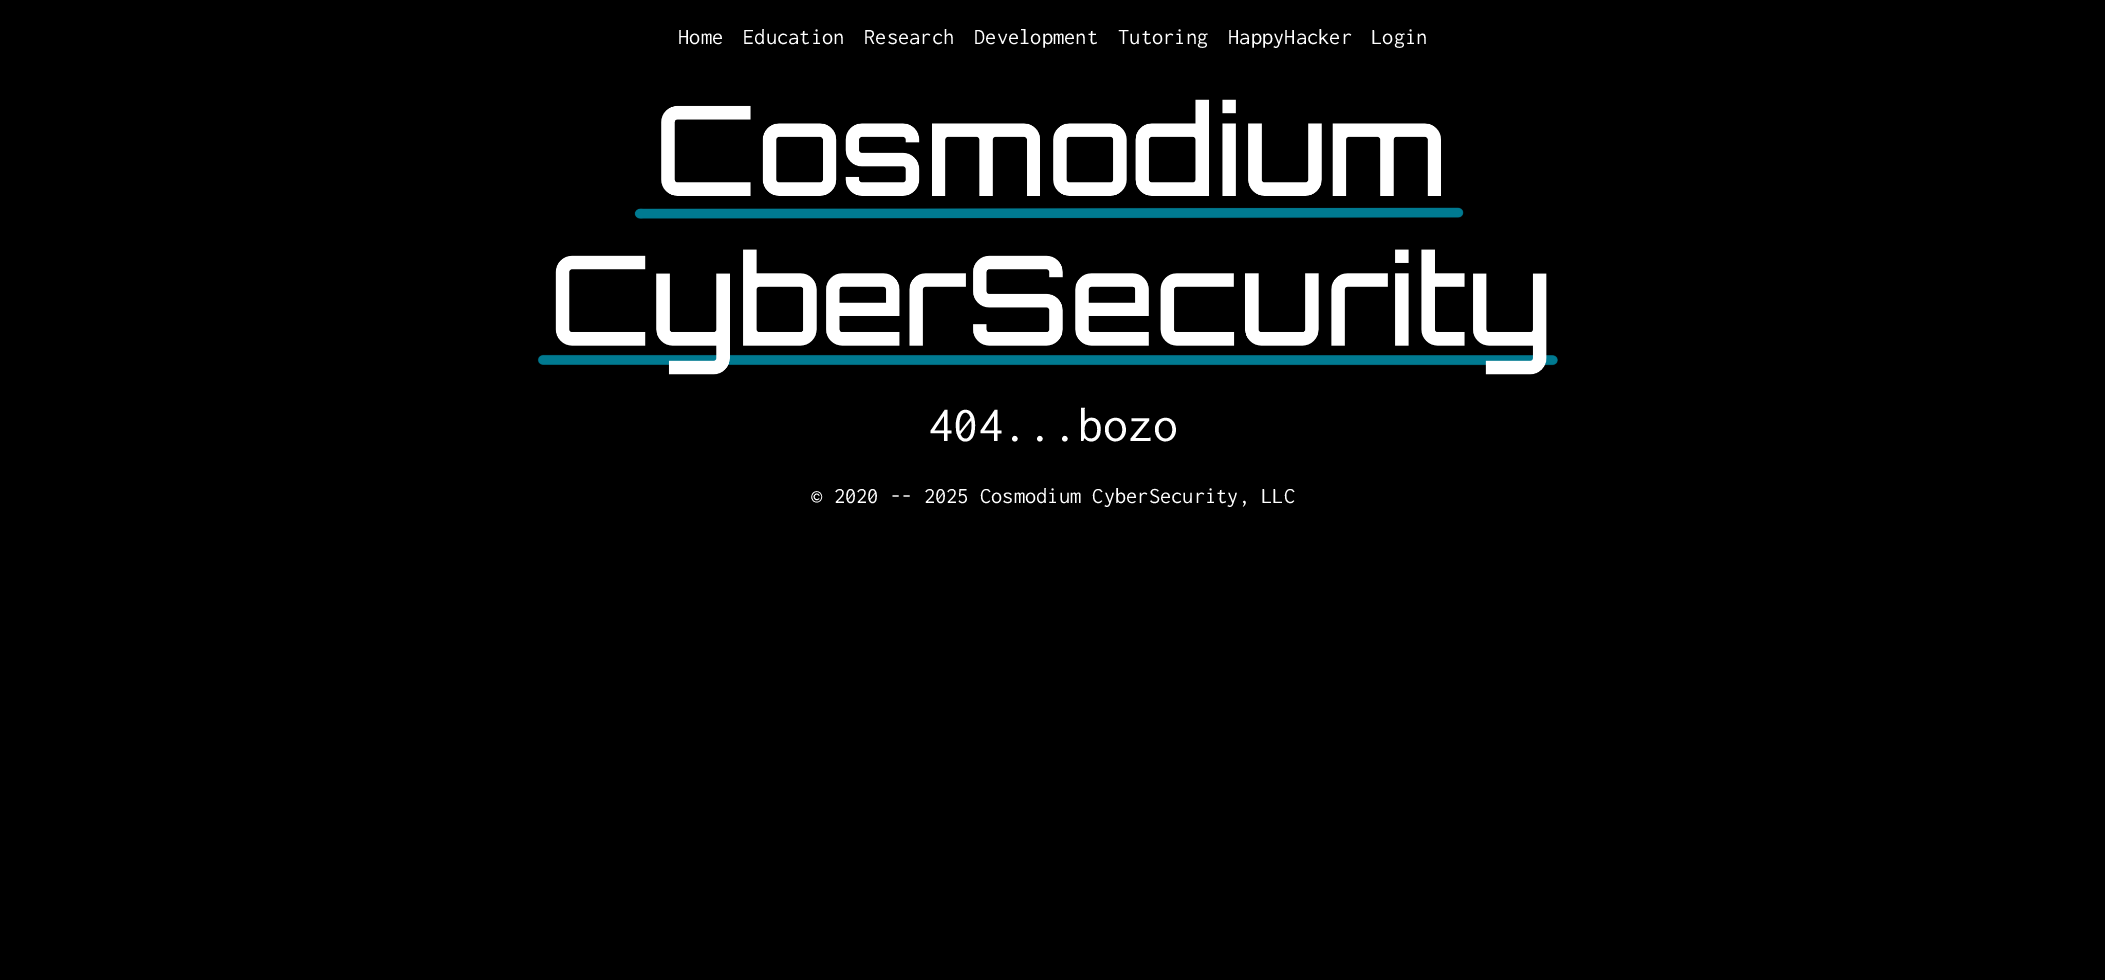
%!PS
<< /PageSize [2105 980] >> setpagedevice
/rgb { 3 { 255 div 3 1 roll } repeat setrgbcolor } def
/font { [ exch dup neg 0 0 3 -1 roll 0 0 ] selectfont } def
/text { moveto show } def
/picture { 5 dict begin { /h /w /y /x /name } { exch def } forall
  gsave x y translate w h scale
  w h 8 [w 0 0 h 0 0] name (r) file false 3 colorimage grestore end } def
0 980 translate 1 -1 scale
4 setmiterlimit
0 0 0 rgb
0 0 2105 980 rectfill
(img_01.rgb) 537 99 1021 276 picture
/Inconsolata-Regular 22.5 font
255 255 255 rgb
(Home) 678 44 text
(Education) 743 44 text
(Research) 864 44 text
(Development) 974 44 text
(Tutoring) 1118 44 text
(HappyHacker) 1228 44 text
(Login) 1371 44 text
/Inconsolata-Regular 50 font
(404...bozo) 928 441 text
/Inconsolata-Regular 22.5 font
(© 2020 -- 2025 Cosmodium CyberSecurity, LLC) 811 503 text
showpage
